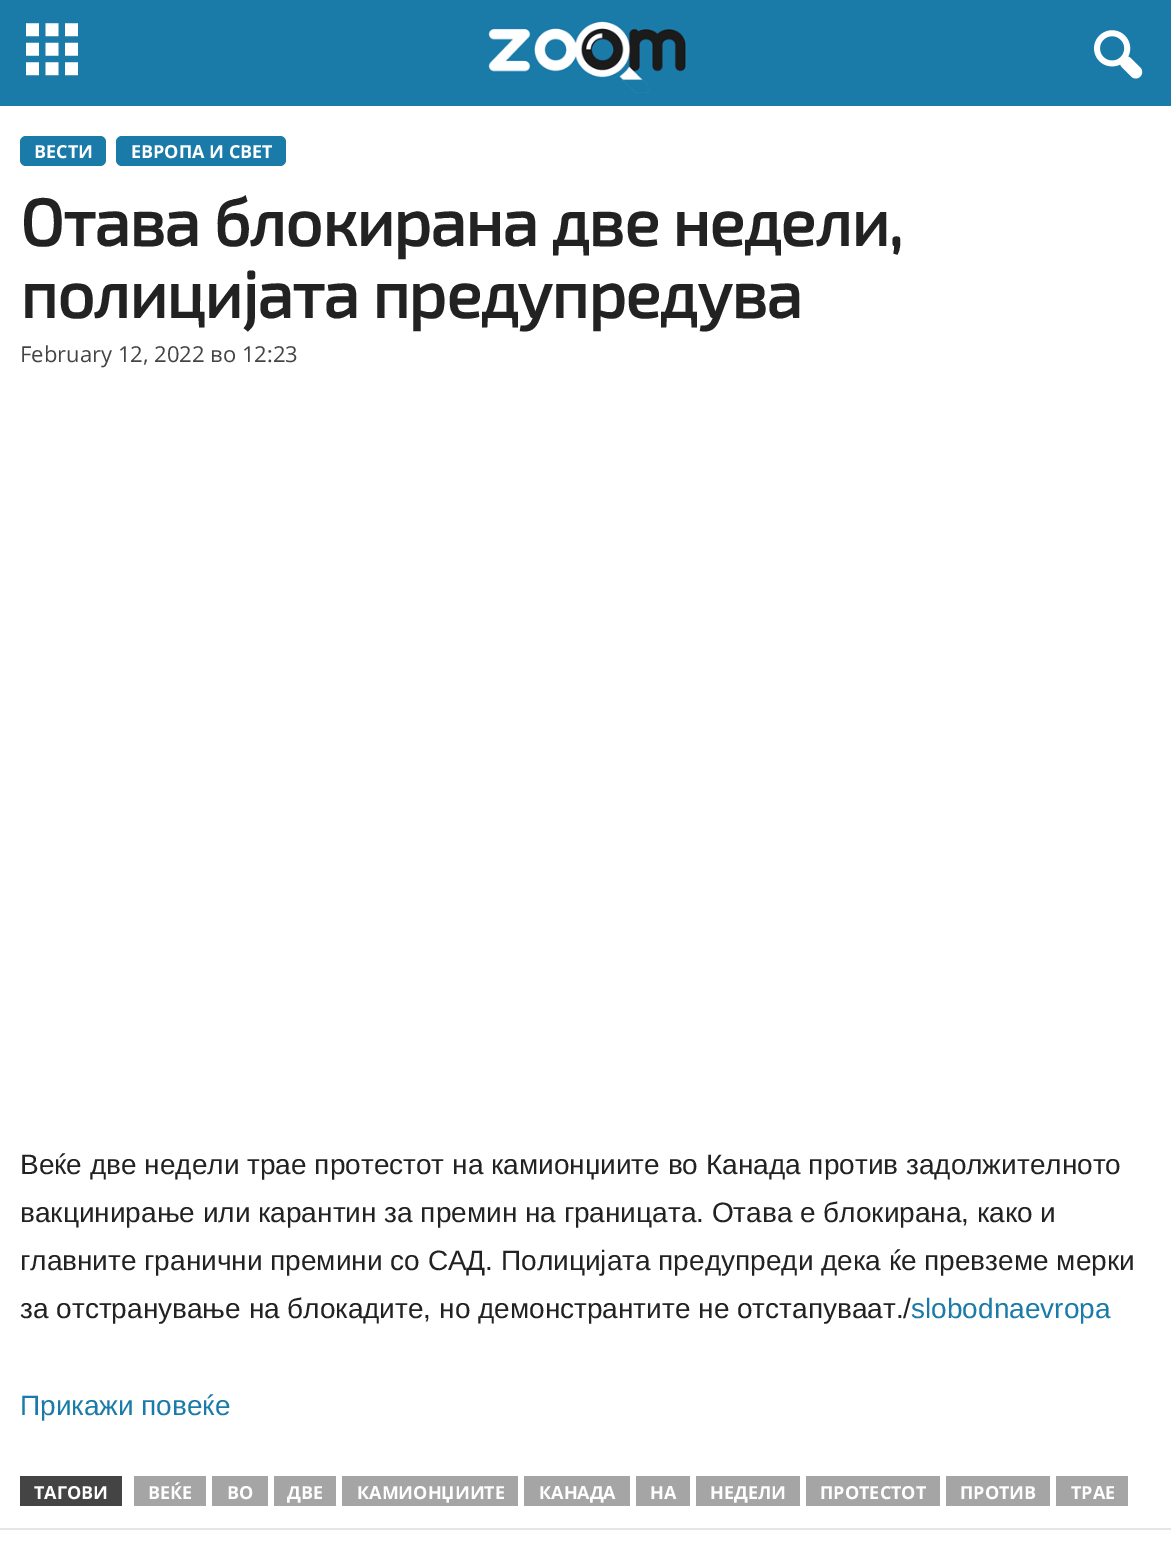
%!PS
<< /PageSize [1171 1541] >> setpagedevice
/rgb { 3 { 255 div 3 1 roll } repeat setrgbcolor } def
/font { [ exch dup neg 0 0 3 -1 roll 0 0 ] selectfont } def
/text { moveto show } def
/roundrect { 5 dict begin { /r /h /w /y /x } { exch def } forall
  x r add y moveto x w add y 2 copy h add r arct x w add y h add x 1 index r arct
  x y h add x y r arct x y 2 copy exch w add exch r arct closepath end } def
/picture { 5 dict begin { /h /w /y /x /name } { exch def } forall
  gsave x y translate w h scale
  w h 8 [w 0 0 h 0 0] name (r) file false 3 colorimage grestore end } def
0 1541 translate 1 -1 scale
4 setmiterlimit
255 255 255 rgb
0 0 1171 1541 rectfill
26 123 169 rgb
0 0 1171 106 rectfill
(img_01.rgb) 26 23 52 53 picture
(img_02.rgb) 488 20 199 73 picture
(img_03.rgb) 1094 30 49 49 picture
20 136 86 30 6 roundrect fill
116 136 170 30 6 roundrect fill
68 68 68 rgb
20 1476 102 30 rectfill
165 165 165 rgb
134 1476 72 30 rectfill
212 1476 56 30 rectfill
274 1476 62 30 rectfill
342 1476 176 30 rectfill
524 1476 106 30 rectfill
636 1476 54 30 rectfill
696 1476 104 30 rectfill
806 1476 134 30 rectfill
946 1476 104 30 rectfill
1056 1476 72 30 rectfill
230 230 230 rgb
0 1528 1171 2 rectfill
/OpenSans-Bold 18 font
255 255 255 rgb
(ВЕСТИ) 34 158 text
(ЕВРОПА И СВЕТ) 131 158 text
/Exo2-Bold 66 font
34 34 34 rgb
20 246 moveto -1.3 0 (Отава блокирана две недели,) ashow
20 318 moveto -1.3 0 (полицијата предупредува) ashow
/OpenSans-Regular 22 font
68 68 68 rgb
(February 12, 2022 во 12:23) 20 362 text
/LiberationSans-Regular 28 font
34 34 34 rgb
(Веќе две недели трае протестот на камионџиите во Канада против задолжителното) 20 1174 text
(вакцинирање или карантин за премин на границата. Отава е блокирана, како и) 20 1222 text
(главните гранични премини со САД. Полицијата предупреди дека ќе превземе мерки) 20 1270 text
(за отстранување на блокадите, но демонстрантите не отстапуваат./) 20 1318 text
26 123 169 rgb
(slobodnaevropa) 911 1318 text
(Прикажи повеќе) 20 1415 text
/OpenSans-Bold 18 font
255 255 255 rgb
(ТАГОВИ) 34 1499 text
(ВЕЌЕ) 148 1499 text
(ВО) 227 1499 text
(ДВЕ) 287 1499 text
(КАМИОНЏИИТЕ) 357 1499 text
(КАНАДА) 539 1499 text
(НА) 650 1499 text
(НЕДЕЛИ) 710 1499 text
(ПРОТЕСТОТ) 820 1499 text
(ПРОТИВ) 960 1499 text
(ТРАЕ) 1071 1499 text
showpage
